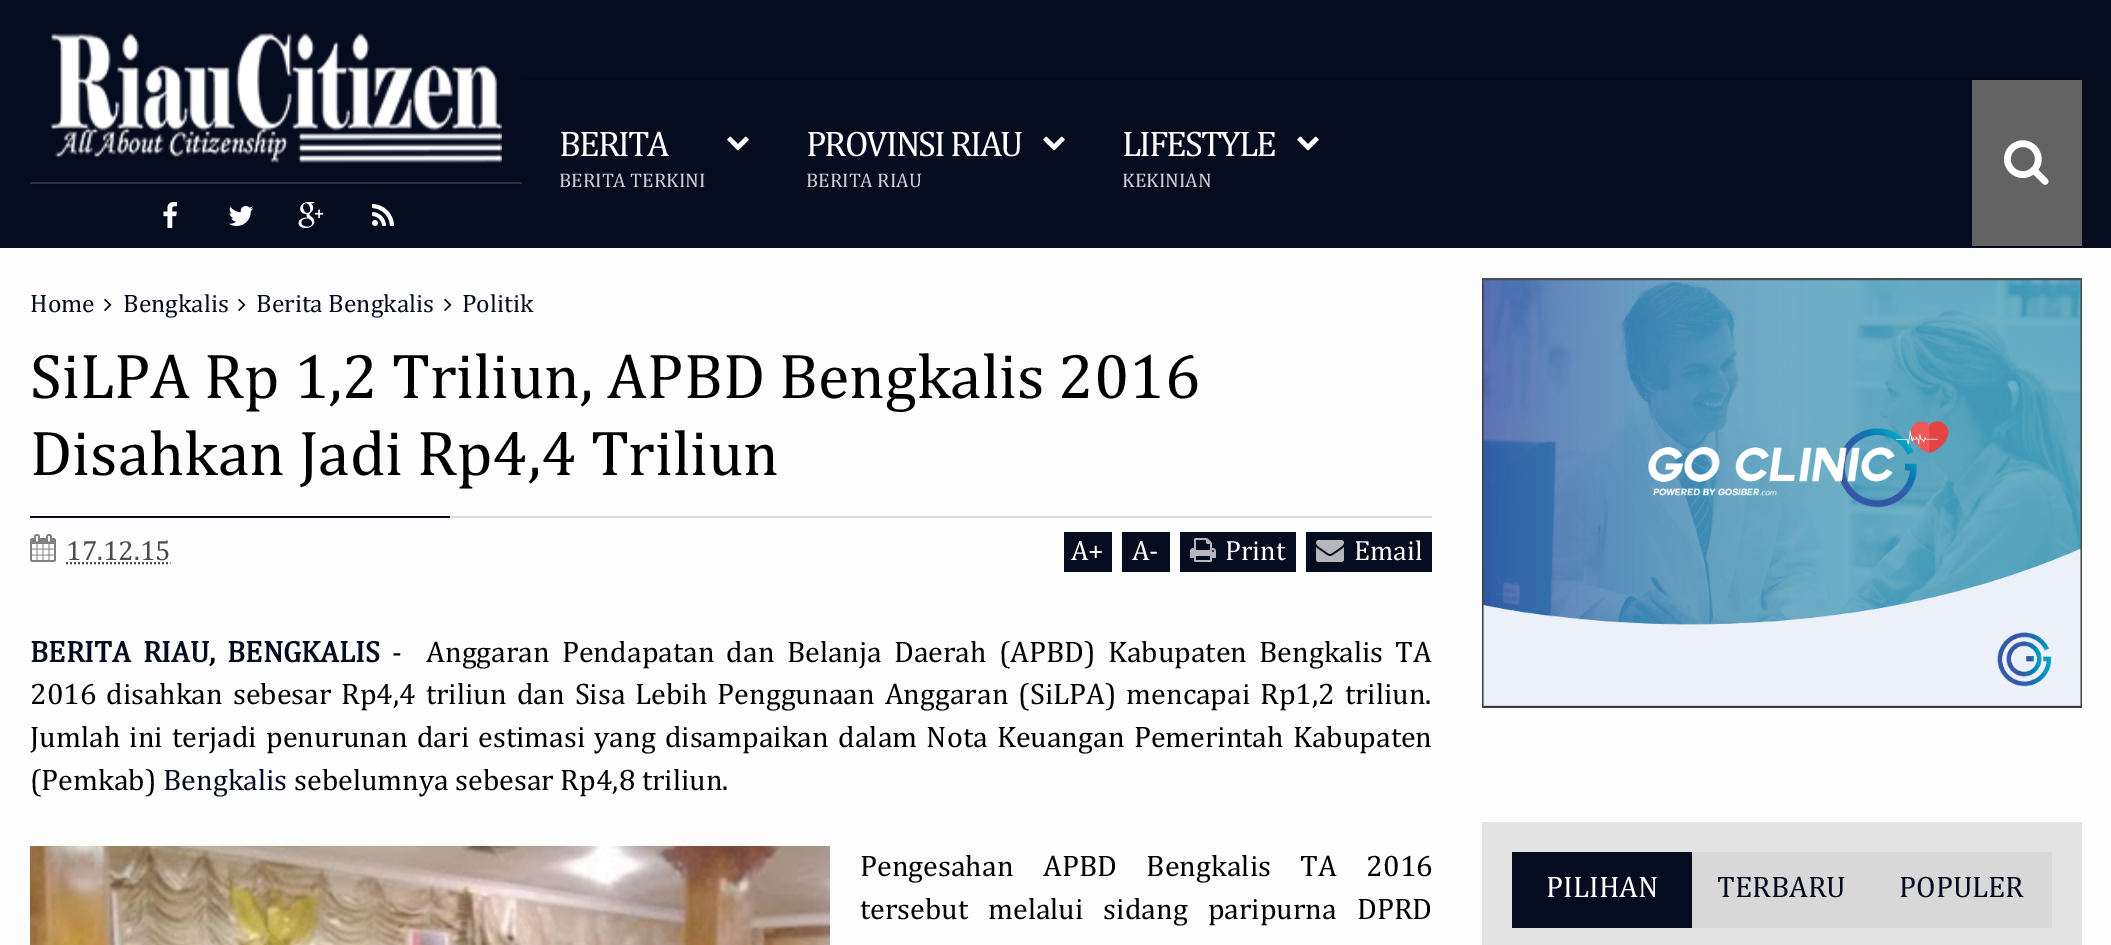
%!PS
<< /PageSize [2111 945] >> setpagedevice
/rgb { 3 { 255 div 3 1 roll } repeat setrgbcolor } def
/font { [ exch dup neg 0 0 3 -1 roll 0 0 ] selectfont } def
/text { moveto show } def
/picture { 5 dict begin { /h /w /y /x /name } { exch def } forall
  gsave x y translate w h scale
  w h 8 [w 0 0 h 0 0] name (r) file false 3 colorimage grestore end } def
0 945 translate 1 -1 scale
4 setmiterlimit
253 253 253 rgb
0 0 2111 945 rectfill
6 12 31 rgb
0 0 2111 248 rectfill
(img_01.rgb) 50 33 452 130 picture
43 48 65 rgb
30 182 492 2 rectfill
5 11 28 rgb
30 184 492 2 rectfill
(img_02.rgb) 163 202 14 26 picture
(img_03.rgb) 228 206 26 20 picture
(img_04.rgb) 298 202 26 26 picture
(img_05.rgb) 372 204 22 22 picture
5 10 25 rgb
522 78 1560 2 rectfill
(img_06.rgb) 727 136 22 15 picture
(img_06.rgb) 1043 136 22 15 picture
(img_06.rgb) 1297 136 22 15 picture
99 99 99 rgb
1972 80 110 166 rectfill
(img_07.rgb) 2004 140 45 45 picture
(img_08.rgb) 104 298 8 13 picture
(img_08.rgb) 238 298 8 13 picture
(img_08.rgb) 444 298 8 13 picture
6 12 31 rgb
30 516 420 2 rectfill
219 219 219 rgb
450 516 982 2 rectfill
(img_09.rgb) 30 534 26 28 picture
76 76 76 rgb
2 setlinewidth
[2 2] 0 setdash
66 563 moveto 104.5 0 rlineto stroke
6 12 31 rgb
1064 532 48 40 rectfill
1122 532 48 40 rectfill
1180 532 116 40 rectfill
(img_10.rgb) 1190 538 26 24 picture
1306 532 126 40 rectfill
(img_11.rgb) 1316 540 28 22 picture
(img_12.rgb) 30 846 800 99 picture
(img_13.rgb) 1482 278 600 430 picture
227 227 227 rgb
1482 822 600 123 rectfill
216 216 216 rgb
1692 852 360 76 rectfill
6 12 31 rgb
1512 852 180 76 rectfill
/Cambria-Regular 36 font
255 255 255 rgb
559 156 moveto -2 0 (BERITA) ashow
/Cambria-Regular 20 font
205 206 210 rgb
(BERITA TERKINI) 559 187 text
/Cambria-Regular 36 font
255 255 255 rgb
806 156 moveto -2 0 (PROVINSI RIAU) ashow
/Cambria-Regular 20 font
205 206 210 rgb
(BERITA RIAU) 806 187 text
/Cambria-Regular 36 font
255 255 255 rgb
1122 156 moveto -2 0 (LIFESTYLE) ashow
/Cambria-Regular 20 font
205 206 210 rgb
(KEKINIAN) 1122 187 text
/Cambria-Regular 25.5 font
6 12 31 rgb
(Home) 30 312 text
(Bengkalis) 123 312 text
(Berita Bengkalis) 256 312 text
(Politik) 462 312 text
/Cambria-Regular 64 font
0 0 0 rgb
(SiLPA Rp 1,2 Triliun, APBD Bengkalis 2016) 30 398 text
(Disahkan Jadi Rp4,4 Triliun) 30 475 text
/Cambria-Regular 28 font
76 76 76 rgb
(17.12.15) 66 560 text
255 255 255 rgb
(A+) 1071 560 text
(A-) 1132 560 text
(Print) 1225 560 text
(Email) 1354 560 text
/Cambria-Bold 30 font
6 12 31 rgb
30 662 moveto 5.5 0 32 (BERITA RIAU) widthshow
0 0 0 rgb
(,) 209 662 text
6 12 31 rgb
(BENGKALIS) 227 662 text
/Cambria-Regular 30 font
0 0 0 rgb
392 662 moveto 5.5 0 32 (-  Anggaran Pendapatan dan Belanja Daerah \(APBD\) Kabupaten Bengkalis TA) widthshow
30 704 moveto 3.4 0 32 (2016 disahkan sebesar Rp4,4 triliun dan Sisa Lebih Penggunaan Anggaran \(SiLPA\) mencapai Rp1,2 triliun.) widthshow
30 747 moveto 2.6 0 32 (Jumlah ini terjadi penurunan dari estimasi yang disampaikan dalam Nota Keuangan Pemerintah Kabupaten) widthshow
(\(Pemkab\)) 30 790 text
6 12 31 rgb
(Bengkalis) 163 790 text
0 0 0 rgb
(sebelumnya sebesar Rp4,8 triliun.) 294 790 text
860 876 moveto 23 0 32 (Pengesahan APBD Bengkalis TA 2016) widthshow
860 919 moveto 13.5 0 32 (tersebut melalui sidang paripurna DPRD) widthshow
255 255 255 rgb
(PILIHAN) 1546 897 text
6 12 31 rgb
(TERBARU) 1717 897 text
(POPULER) 1899 897 text
showpage
